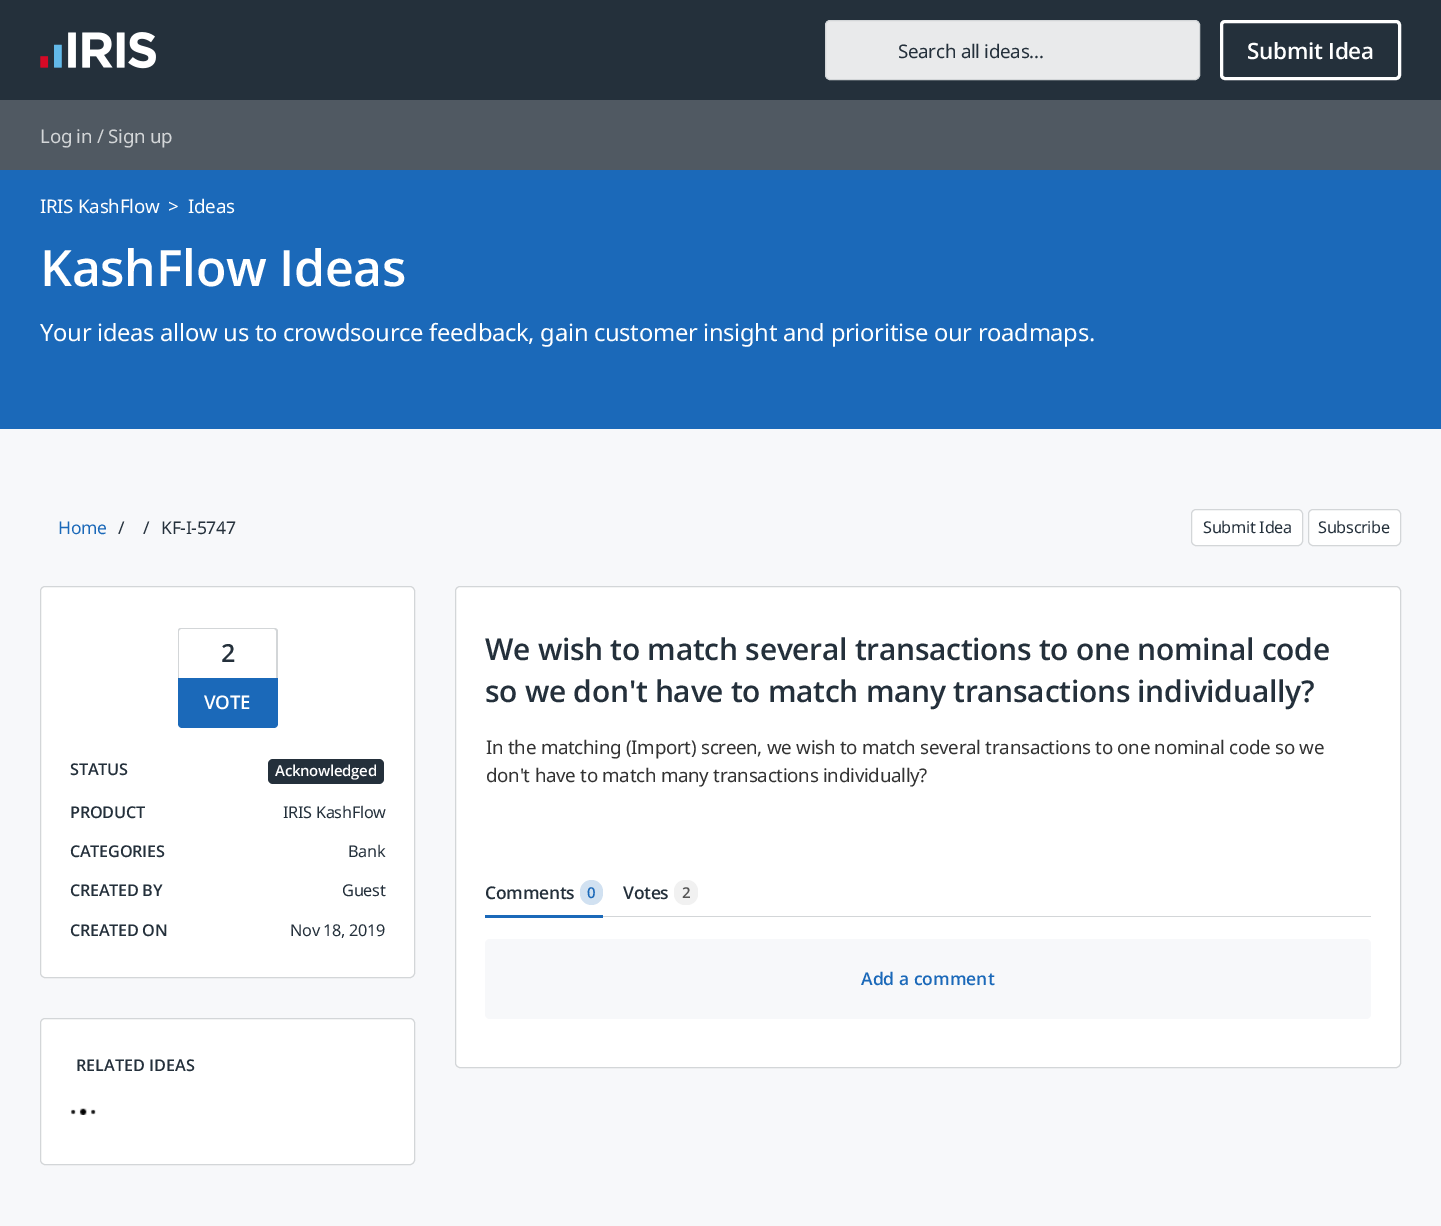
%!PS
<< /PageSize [1441 1226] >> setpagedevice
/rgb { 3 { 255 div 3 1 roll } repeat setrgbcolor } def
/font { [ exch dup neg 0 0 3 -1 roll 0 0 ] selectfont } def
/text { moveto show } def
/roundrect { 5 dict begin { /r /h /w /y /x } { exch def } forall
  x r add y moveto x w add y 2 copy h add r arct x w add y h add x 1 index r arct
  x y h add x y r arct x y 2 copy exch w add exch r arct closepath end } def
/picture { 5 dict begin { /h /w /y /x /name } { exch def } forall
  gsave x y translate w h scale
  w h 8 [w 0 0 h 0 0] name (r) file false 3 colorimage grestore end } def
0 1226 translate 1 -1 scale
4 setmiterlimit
36 48 59 rgb
0 0 1441 1226 rectfill
(img_01.rgb) 40 32 116 37 picture
233 234 235 rgb
825.5 20.5 374 59 4.5 roundrect gsave fill grestore
211 214 216 rgb
stroke
255 255 255 rgb
3 setlinewidth
1221.5 21.5 178 57 3.5 roundrect stroke
80 89 98 rgb
0 100 1441 70 rectfill
27 105 185 rgb
0 170 1441 259 rectfill
247 248 250 rgb
0 429 1441 797 rectfill
255 255 255 rgb
1191.5 509.5 111 36 4.5 roundrect gsave fill grestore
211 214 216 rgb
1 setlinewidth
stroke
255 255 255 rgb
1308.5 509.5 92 36 4.5 roundrect gsave fill grestore
211 214 216 rgb
stroke
255 255 255 rgb
40.5 586.5 374 391 4.5 roundrect gsave fill grestore
211 214 216 rgb
stroke
181 628 moveto 93 0 rlineto 2 0 4 1 4 3 rcurveto 0 47 rlineto -100 0 rlineto 0 -47 rlineto 0 -2 1 -3 3 -3 rcurveto closepath 181 629 moveto 93 0 rlineto 1 0 2 1 2 2 rcurveto 0 47 rlineto -97 0 rlineto 0 -47 rlineto 0 -1 1 -2 2 -2 rcurveto closepath eofill
27 105 185 rgb
178 678 moveto 100 0 rlineto 0 46 rlineto 0 2 -2 4 -4 4 rcurveto -92 0 rlineto -2 0 -4 -2 -4 -4 rcurveto closepath fill
36 48 59 rgb
268 759 116 25 5 roundrect fill
255 255 255 rgb
40.5 1018.5 374 146 4.5 roundrect gsave fill grestore
211 214 216 rgb
stroke
(img_02.rgb) 70 1108 26 7 picture
255 255 255 rgb
455.5 586.5 945 481 4.5 roundrect gsave fill grestore
211 214 216 rgb
stroke
603 916 768 1 rectfill
27 105 185 rgb
485 915 118 3 rectfill
209 225 241 rgb
580 880 23 25 11.5 roundrect fill
241 241 241 rgb
674 880 24 25 11 roundrect fill
247 248 250 rgb
485 939 886 80 5 roundrect fill
/NotoSans-Regular 18.75 font
36 48 59 rgb
898 58 moveto -0.3 0 (Search all ideas...) ashow
/OpenSans-SemiBold 22.5 font
255 255 255 rgb
1247 59 moveto -0.3 0 (Submit Idea) ashow
/NotoSans-Regular 18.75 font
211 214 216 rgb
40 143 moveto -0.3 0 (Log in / Sign up) ashow
255 255 255 rgb
40 213 moveto -0.3 0 (IRIS KashFlow) ashow
168 213 moveto -0.3 0 (>) ashow
188 213 moveto -0.3 0 (Ideas) ashow
/OpenSans-SemiBold 50 font
40 286 moveto -0.3 0 (KashFlow Ideas) ashow
/NotoSans-Regular 23.75 font
40 341 moveto -0.3 0 (Your ideas allow us to crowdsource feedback, gain customer insight and prioritise our roadmaps.) ashow
/NotoSans-Regular 17.5 font
27 105 185 rgb
58 534 moveto -0.3 0 (Home) ashow
36 48 59 rgb
118 534 moveto -0.3 0 (/) ashow
143 534 moveto -0.3 0 (/) ashow
161 534 moveto -0.3 0 (KF-I-5747) ashow
/NotoSans-Regular 16.25 font
1203 533 moveto -0.3 0 (Submit Idea) ashow
1318 533 moveto -0.3 0 (Subscribe) ashow
/OpenSans-SemiBold 25 font
221 662 moveto -0.3 0 (2) ashow
/OpenSans-SemiBold 18.75 font
255 255 255 rgb
204 709 moveto -0.3 0 (VOTE) ashow
/OpenSans-SemiBold 16.25 font
36 48 59 rgb
70 775 moveto -0.3 0 (STATUS) ashow
/OpenSans-SemiBold 15 font
255 255 255 rgb
275 776 moveto -0.3 0 (Acknowledged) ashow
/OpenSans-SemiBold 16.25 font
36 48 59 rgb
70 818 moveto -0.3 0 (PRODUCT) ashow
/NotoSans-Regular 16.25 font
283 818 moveto -0.3 0 (IRIS KashFlow) ashow
/OpenSans-SemiBold 16.25 font
70 857 moveto -0.3 0 (CATEGORIES) ashow
/NotoSans-Regular 16.25 font
348 857 moveto -0.3 0 (Bank) ashow
/OpenSans-SemiBold 16.25 font
70 896 moveto -0.3 0 (CREATED BY) ashow
/NotoSans-Regular 16.25 font
342 896 moveto -0.3 0 (Guest) ashow
/OpenSans-SemiBold 16.25 font
70 936 moveto -0.3 0 (CREATED ON) ashow
/NotoSans-Regular 16.25 font
290 936 moveto -0.3 0 (Nov 18, 2019) ashow
/OpenSans-SemiBold 16.25 font
(RELATED IDEAS) 76 1071 text
/OpenSans-SemiBold 30 font
485 660 moveto -0.3 0 (We wish to match several transactions to one nominal code) ashow
485 702 moveto -0.3 0 (so we don't have to match many transactions individually?) ashow
/NotoSans-Regular 18.75 font
51 51 51 rgb
486 754 moveto -0.3 0 (In the matching \(Import\) screen, we wish to match several transactions to one nominal code so we) ashow
486 782 moveto -0.3 0 (don't have to match many transactions individually?) ashow
/OpenSans-SemiBold 17.5 font
36 48 59 rgb
485 899 moveto -0.3 0 (Comments) ashow
/OpenSans-SemiBold 15 font
27 105 185 rgb
587 898 moveto -0.3 0 (0) ashow
/OpenSans-SemiBold 17.5 font
36 48 59 rgb
623 899 moveto -0.3 0 (Votes) ashow
/OpenSans-SemiBold 15 font
85 85 85 rgb
682 898 moveto -0.3 0 (2) ashow
/OpenSans-SemiBold 17.5 font
27 105 185 rgb
(Add a comment) 861 985 text
showpage
